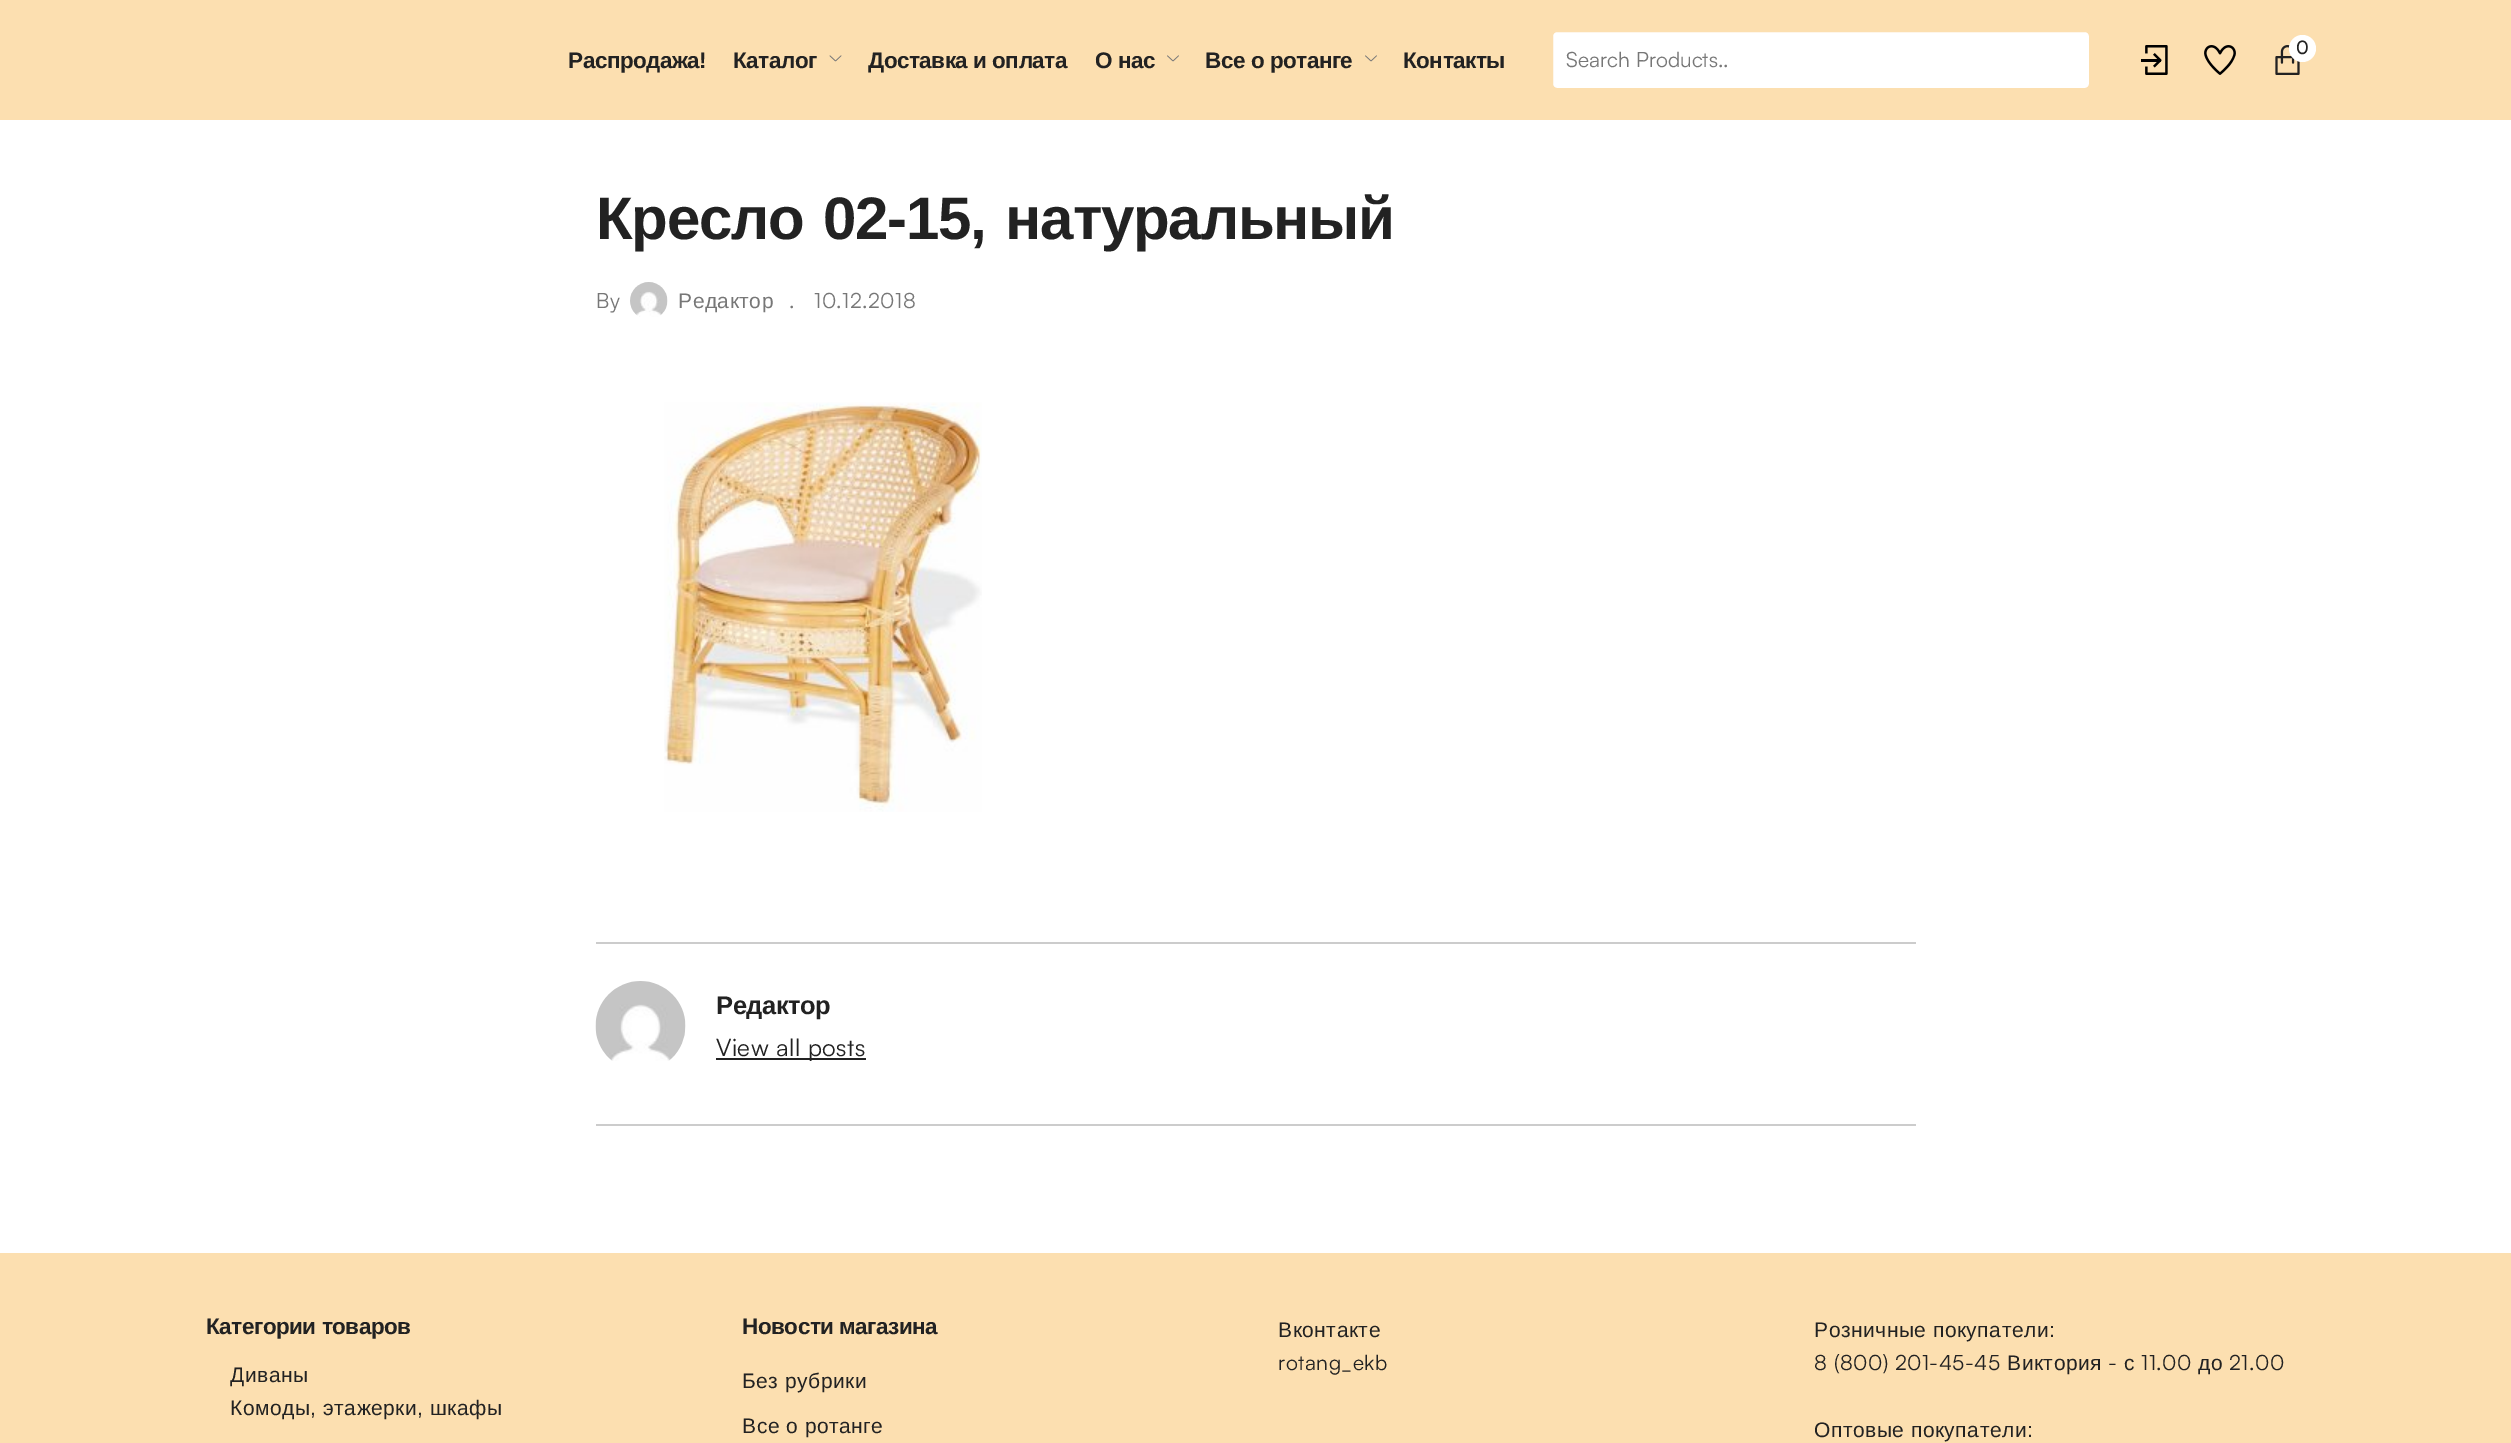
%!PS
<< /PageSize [2511 1443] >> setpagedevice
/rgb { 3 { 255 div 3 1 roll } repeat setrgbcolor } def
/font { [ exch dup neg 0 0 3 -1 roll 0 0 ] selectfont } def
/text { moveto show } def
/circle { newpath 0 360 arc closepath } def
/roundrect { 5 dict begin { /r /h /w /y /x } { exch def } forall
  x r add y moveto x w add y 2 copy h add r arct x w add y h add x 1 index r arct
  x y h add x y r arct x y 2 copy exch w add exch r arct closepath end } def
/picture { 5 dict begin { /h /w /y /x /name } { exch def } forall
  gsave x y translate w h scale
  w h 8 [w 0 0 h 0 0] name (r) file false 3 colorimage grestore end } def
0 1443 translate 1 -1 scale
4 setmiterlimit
255 255 255 rgb
0 0 2511 1443 rectfill
252 223 176 rgb
0 0 2511 120 rectfill
(img_01.rgb) 829 55 13 7 picture
(img_02.rgb) 1167 55 12 7 picture
(img_02.rgb) 1365 55 12 7 picture
255 255 255 rgb
1552 31 538 58 5 roundrect gsave fill grestore
252 223 176 rgb
2 setlinewidth
stroke
(img_03.rgb) 2141 45 27 30 picture
(img_04.rgb) 2204 45 32 30 picture
(img_05.rgb) 2275 45 25 30 picture
255 255 255 rgb
2302.5 48.5 13.5 circle fill
(img_06.rgb) 630 282 38 35 picture
(img_07.rgb) 664 402 318 410 picture
204 204 204 rgb
596 942 1320 2 rectfill
(img_08.rgb) 595 981 91 80 picture
34 34 34 rgb
716 1058 150 2 rectfill
204 204 204 rgb
596 1124 1320 2 rectfill
252 223 176 rgb
0 1253 2511 190 rectfill
/LiberationSans-Bold 22.5 font
34 34 34 rgb
568 68 moveto -0.5 0 (Распродажа!) ashow
733 68 moveto -0.5 0 (Каталог) ashow
868 68 moveto -0.5 0 (Доставка и оплата) ashow
1095 68 moveto -0.5 0 (О нас) ashow
1205 68 moveto -0.5 0 (Все о ротанге) ashow
1403 68 moveto -0.5 0 (Контакты) ashow
/Satoshi-Regular 21 font
119 119 119 rgb
(Search Products..) 1566 67 text
/Satoshi-Bold 18 font
34 34 34 rgb
(0) 2296 54 text
/LiberationSans-Bold 60 font
596 239 moveto 4 0 32 -1.2 0 (Кресло 02-15, натуральный) awidthshow
/Satoshi-Regular 21 font
119 119 119 rgb
596 308 moveto 0.5 0 (By) ashow
/LiberationSans-Regular 21 font
678 308 moveto 0.5 0 (Редактор) ashow
/Satoshi-Regular 21 font
789 308 moveto 0.5 0 (.) ashow
814 308 moveto 0.5 0 (10.12.2018) ashow
/LiberationSans-Bold 25.5 font
34 34 34 rgb
716 1014 moveto -0.5 0 (Редактор) ashow
/Satoshi-Regular 24 font
716 1056 moveto 0.5 0 (View all posts) ashow
/LiberationSans-Bold 22.5 font
206 1334 moveto -0.5 0 (Категории товаров) ashow
/LiberationSans-Regular 21 font
230 1382 moveto 0.5 0 (Диваны) ashow
230 1415 moveto 0.5 0 (Комоды, этажерки, шкафы) ashow
/LiberationSans-Bold 22.5 font
742 1334 moveto -0.5 0 (Новости магазина) ashow
/LiberationSans-Regular 21 font
742 1388 moveto 0.5 0 (Без рубрики) ashow
742 1433 moveto 0.5 0 (Все о ротанге) ashow
1278 1337 moveto 0.5 0 (Вконтакте) ashow
/Satoshi-Regular 21 font
1278 1370 moveto 0.5 0 (rotang_ekb) ashow
/LiberationSans-Regular 21 font
1814 1337 moveto 0.5 0 (Розничные покупатели:) ashow
/Satoshi-Regular 21 font
1814 1370 moveto 0.5 0 (8 \(800\) 201-45-45) ashow
/LiberationSans-Regular 21 font
2007 1370 moveto 0.5 0 (Виктория) ashow
/Satoshi-Regular 21 font
2108 1370 moveto 0.5 0 (-) ashow
/LiberationSans-Regular 21 font
2124 1370 moveto 0.5 0 (с) ashow
/Satoshi-Regular 21 font
2141 1370 moveto 0.5 0 (11.00) ashow
/LiberationSans-Regular 21 font
2198 1370 moveto 0.5 0 (до) ashow
/Satoshi-Regular 21 font
2229 1370 moveto 0.5 0 (21.00) ashow
/LiberationSans-Regular 21 font
1814 1437 moveto 0.5 0 (Оптовые покупатели:) ashow
showpage
